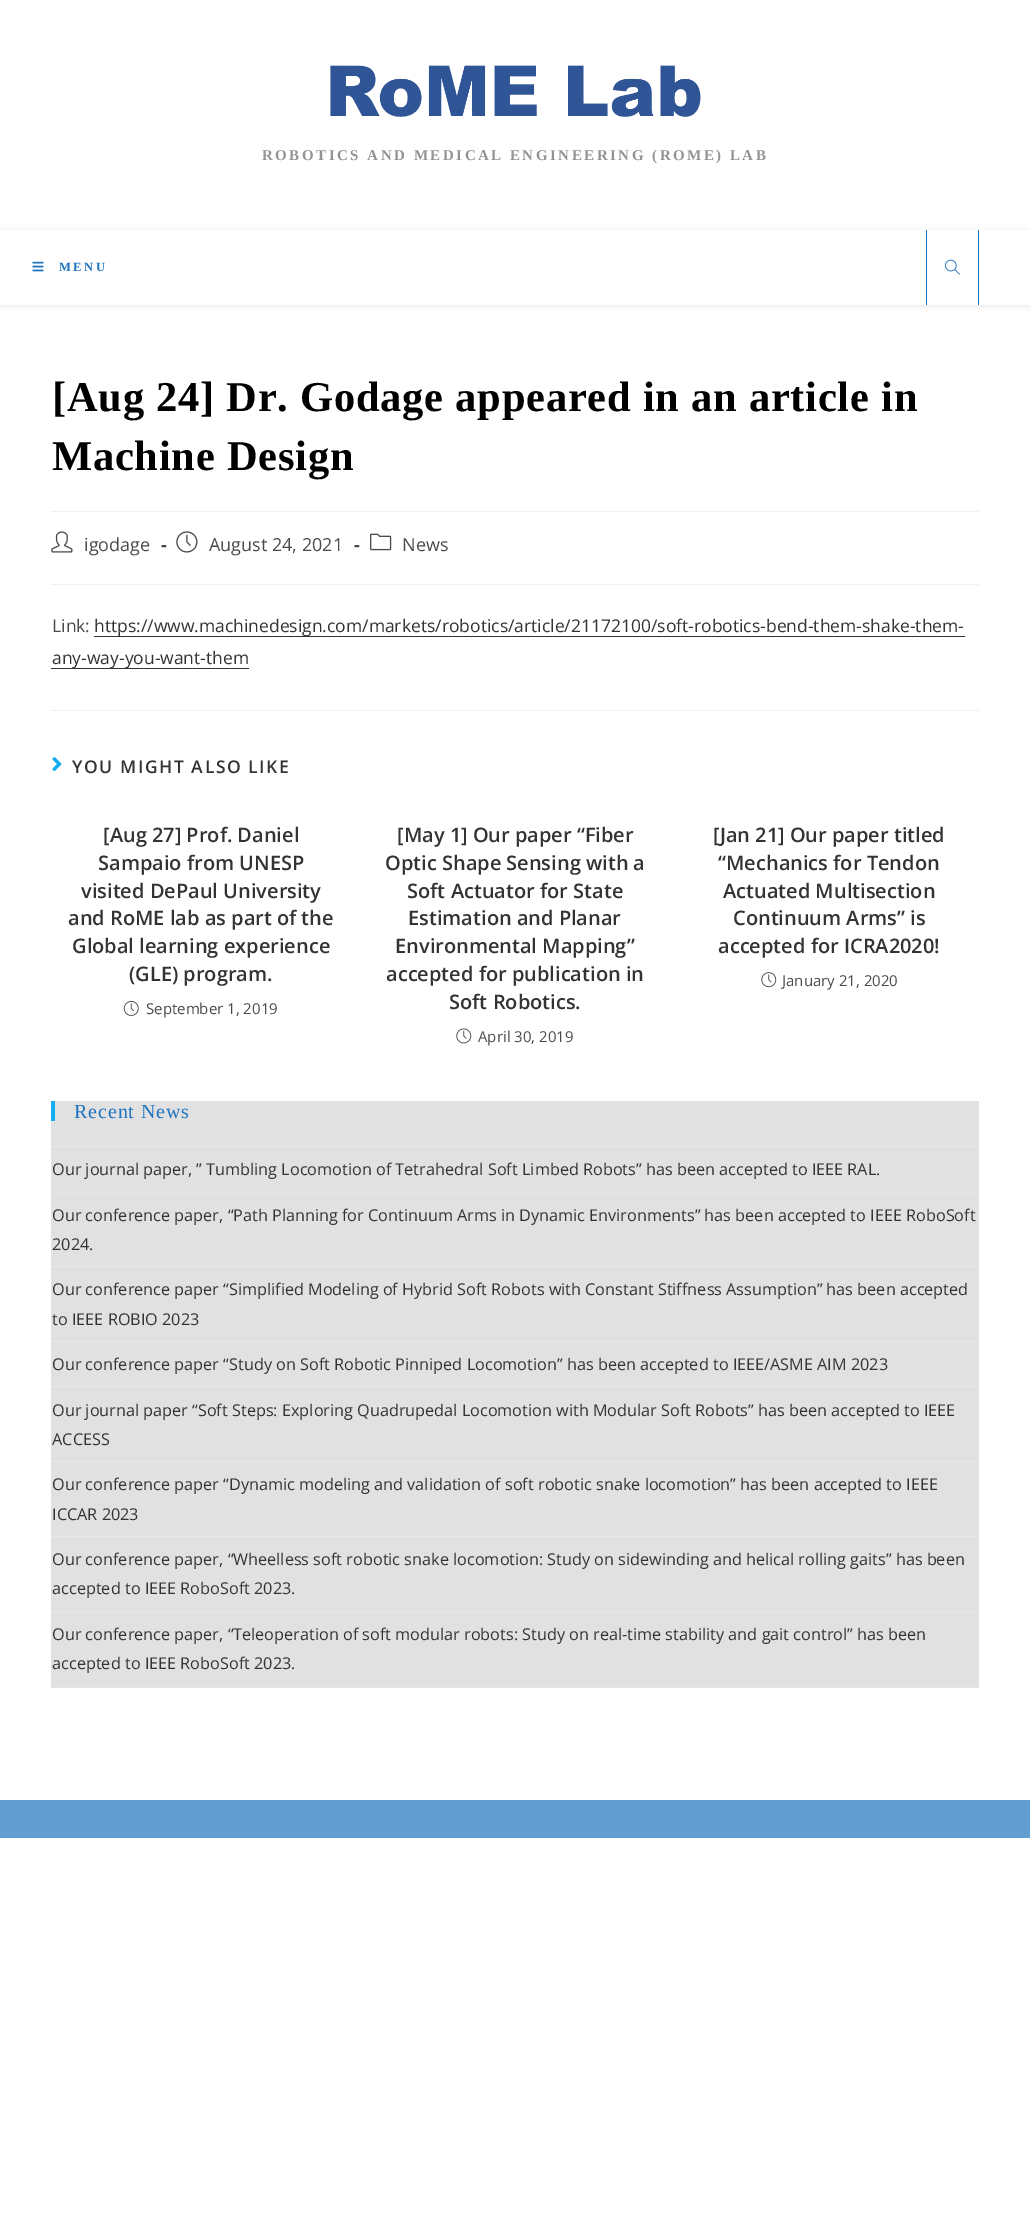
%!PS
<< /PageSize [1030 2230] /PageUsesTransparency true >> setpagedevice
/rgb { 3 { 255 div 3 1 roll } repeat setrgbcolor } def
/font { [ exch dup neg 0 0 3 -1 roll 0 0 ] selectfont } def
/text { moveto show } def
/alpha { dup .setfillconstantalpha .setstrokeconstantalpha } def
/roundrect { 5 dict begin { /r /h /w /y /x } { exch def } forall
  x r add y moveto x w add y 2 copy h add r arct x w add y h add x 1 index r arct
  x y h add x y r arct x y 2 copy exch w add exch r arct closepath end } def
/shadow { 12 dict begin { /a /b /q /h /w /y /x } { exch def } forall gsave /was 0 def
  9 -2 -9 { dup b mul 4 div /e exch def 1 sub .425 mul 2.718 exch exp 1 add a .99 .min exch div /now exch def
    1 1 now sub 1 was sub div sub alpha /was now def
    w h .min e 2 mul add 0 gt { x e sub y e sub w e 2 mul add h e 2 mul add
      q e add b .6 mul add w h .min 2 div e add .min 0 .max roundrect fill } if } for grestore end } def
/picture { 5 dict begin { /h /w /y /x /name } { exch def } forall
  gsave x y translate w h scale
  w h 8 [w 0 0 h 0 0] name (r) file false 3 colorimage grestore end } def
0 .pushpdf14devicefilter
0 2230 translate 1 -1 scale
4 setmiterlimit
255 255 255 rgb
0 0 1030 2230 rectfill
(img_01.rgb) 330 65 371 52 picture
gsave
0 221 moveto 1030 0 rlineto 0 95 rlineto -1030 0 rlineto closepath 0 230 moveto 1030 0 rlineto 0 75 rlineto -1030 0 rlineto closepath eoclip newpath
0 0 0 rgb
0 231 1030 75 0 3 0.1 shadow
grestore
(img_02.rgb) 32 261 12 11 picture
30 115 190 rgb
978 230 1 75 rectfill
926 230 1 75 rectfill
(img_03.rgb) 945 259 15 16 picture
241 241 241 rgb
51 511 928 1 rectfill
51 584 928 1 rectfill
(img_04.rgb) 51 531 22 22 picture
(img_05.rgb) 176 531 22 22 picture
(img_06.rgb) 370 533 22 18 picture
51 51 51 rgb
94 636 871 1 rectfill
51 668 198 1 rectfill
241 241 241 rgb
51 710 928 1 rectfill
(img_07.rgb) 52 757 10 15 picture
(img_08.rgb) 123 1000 16 16 picture
(img_09.rgb) 456 1028 16 16 picture
(img_10.rgb) 761 972 16 16 picture
225 225 225 rgb
51 1101 928 587 rectfill
19 175 240 rgb
51 1101 4 20 rectfill
233 233 233 rgb
51 1146 928 1 rectfill
51 1193 928 1 rectfill
51 1266 928 1 rectfill
51 1341 928 1 rectfill
51 1386 928 1 rectfill
51 1461 928 1 rectfill
51 1536 928 1 rectfill
51 1611 928 1 rectfill
51 1686 928 1 rectfill
98 157 210 rgb
0 1800 1030 38 rectfill
/LiberationSerif-Bold 15 font
146 146 146 rgb
262 160 moveto 2.5 0 (ROBOTICS AND MEDICAL ENGINEERING \(ROME\) LAB) ashow
/LiberationSerif-Bold 12.5 font
30 115 190 rgb
59 271 moveto 2.5 0 (MENU) ashow
/LiberationSerif-Bold 42.5 font
0 0 0 rgb
52 411 moveto 0.75 0 ([Aug 24] Dr. Godage appeared in an article in) ashow
52 470 moveto 0.75 0 (Machine Design) ashow
/OpenSans-Regular 18 font
74 74 74 rgb
(igodage) 84 551 text
/OpenSans-Bold 18 font
(-) 161 551 text
/OpenSans-Regular 18 font
(August 24, 2021) 209 551 text
/OpenSans-Bold 18 font
(-) 354 551 text
/OpenSans-Regular 18 font
(News) 402 551 text
/OpenSans-Regular 17.5 font
(Link:) 52 632 text
51 51 51 rgb
(https://www.machinedesign.com/markets/robotics/article/21172100/soft-robotics-bend-them-shake-them-) 94 632 text
(any-way-you-want-them) 52 664 text
/OpenSans-SemiBold 17.5 font
72 773 moveto 1.6 0 (YOU MIGHT ALSO LIKE) ashow
/OpenSans-SemiBold 20 font
([Aug 27] Prof. Daniel) 103 842 text
(Sampaio from UNESP) 98 870 text
(visited DePaul University) 81 898 text
(and RoME lab as part of the) 68 925 text
(Global learning experience) 72 953 text
(\(GLE\) program.) 129 981 text
/OpenSans-Regular 15 font
74 74 74 rgb
(September 1, 2019) 146 1014 text
/OpenSans-SemiBold 20 font
51 51 51 rgb
([May 1] Our paper “Fiber) 397 842 text
(Optic Shape Sensing with a) 385 870 text
(Soft Actuator for State) 407 898 text
(Estimation and Planar) 408 925 text
(Environmental Mapping”) 395 953 text
(accepted for publication in) 386 981 text
(Soft Robotics.) 449 1009 text
/OpenSans-Regular 15 font
74 74 74 rgb
(April 30, 2019) 478 1042 text
/OpenSans-SemiBold 20 font
51 51 51 rgb
([Jan 21] Our paper titled) 713 842 text
(“Mechanics for Tendon) 718 870 text
(Actuated Multisection) 723 898 text
(Continuum Arms” is) 733 925 text
(accepted for ICRA2020!) 718 953 text
/OpenSans-Regular 15 font
74 74 74 rgb
(January 21, 2020) 782 986 text
/LiberationSerif-Regular 20 font
30 115 190 rgb
74 1118 moveto 0.9 0 (Recent News) ashow
/OpenSans-Regular 16.25 font
51 51 51 rgb
(Our journal paper, ” Tumbling Locomotion of Tetrahedral Soft Limbed Robots” has been accepted to IEEE RAL.) 52 1175 text
(Our conference paper, “Path Planning for Continuum Arms in Dynamic Environments” has been accepted to IEEE RoboSoft) 52 1221 text
(2024.) 52 1250 text
(Our conference paper “Simplified Modeling of Hybrid Soft Robots with Constant Stiffness Assumption” has been accepted) 52 1295 text
(to IEEE ROBIO 2023) 52 1325 text
(Our conference paper “Study on Soft Robotic Pinniped Locomotion” has been accepted to IEEE/ASME AIM 2023) 52 1370 text
(Our journal paper “Soft Steps: Exploring Quadrupedal Locomotion with Modular Soft Robots” has been accepted to IEEE) 52 1416 text
(ACCESS) 52 1445 text
(Our conference paper “Dynamic modeling and validation of soft robotic snake locomotion” has been accepted to IEEE) 52 1490 text
(ICCAR 2023) 52 1520 text
(Our conference paper, “Wheelless soft robotic snake locomotion: Study on sidewinding and helical rolling gaits” has been) 52 1565 text
(accepted to IEEE RoboSoft 2023.) 52 1594 text
(Our conference paper, “Teleoperation of soft modular robots: Study on real-time stability and gait control” has been) 52 1640 text
(accepted to IEEE RoboSoft 2023.) 52 1669 text
.poppdf14devicefilter showpage
